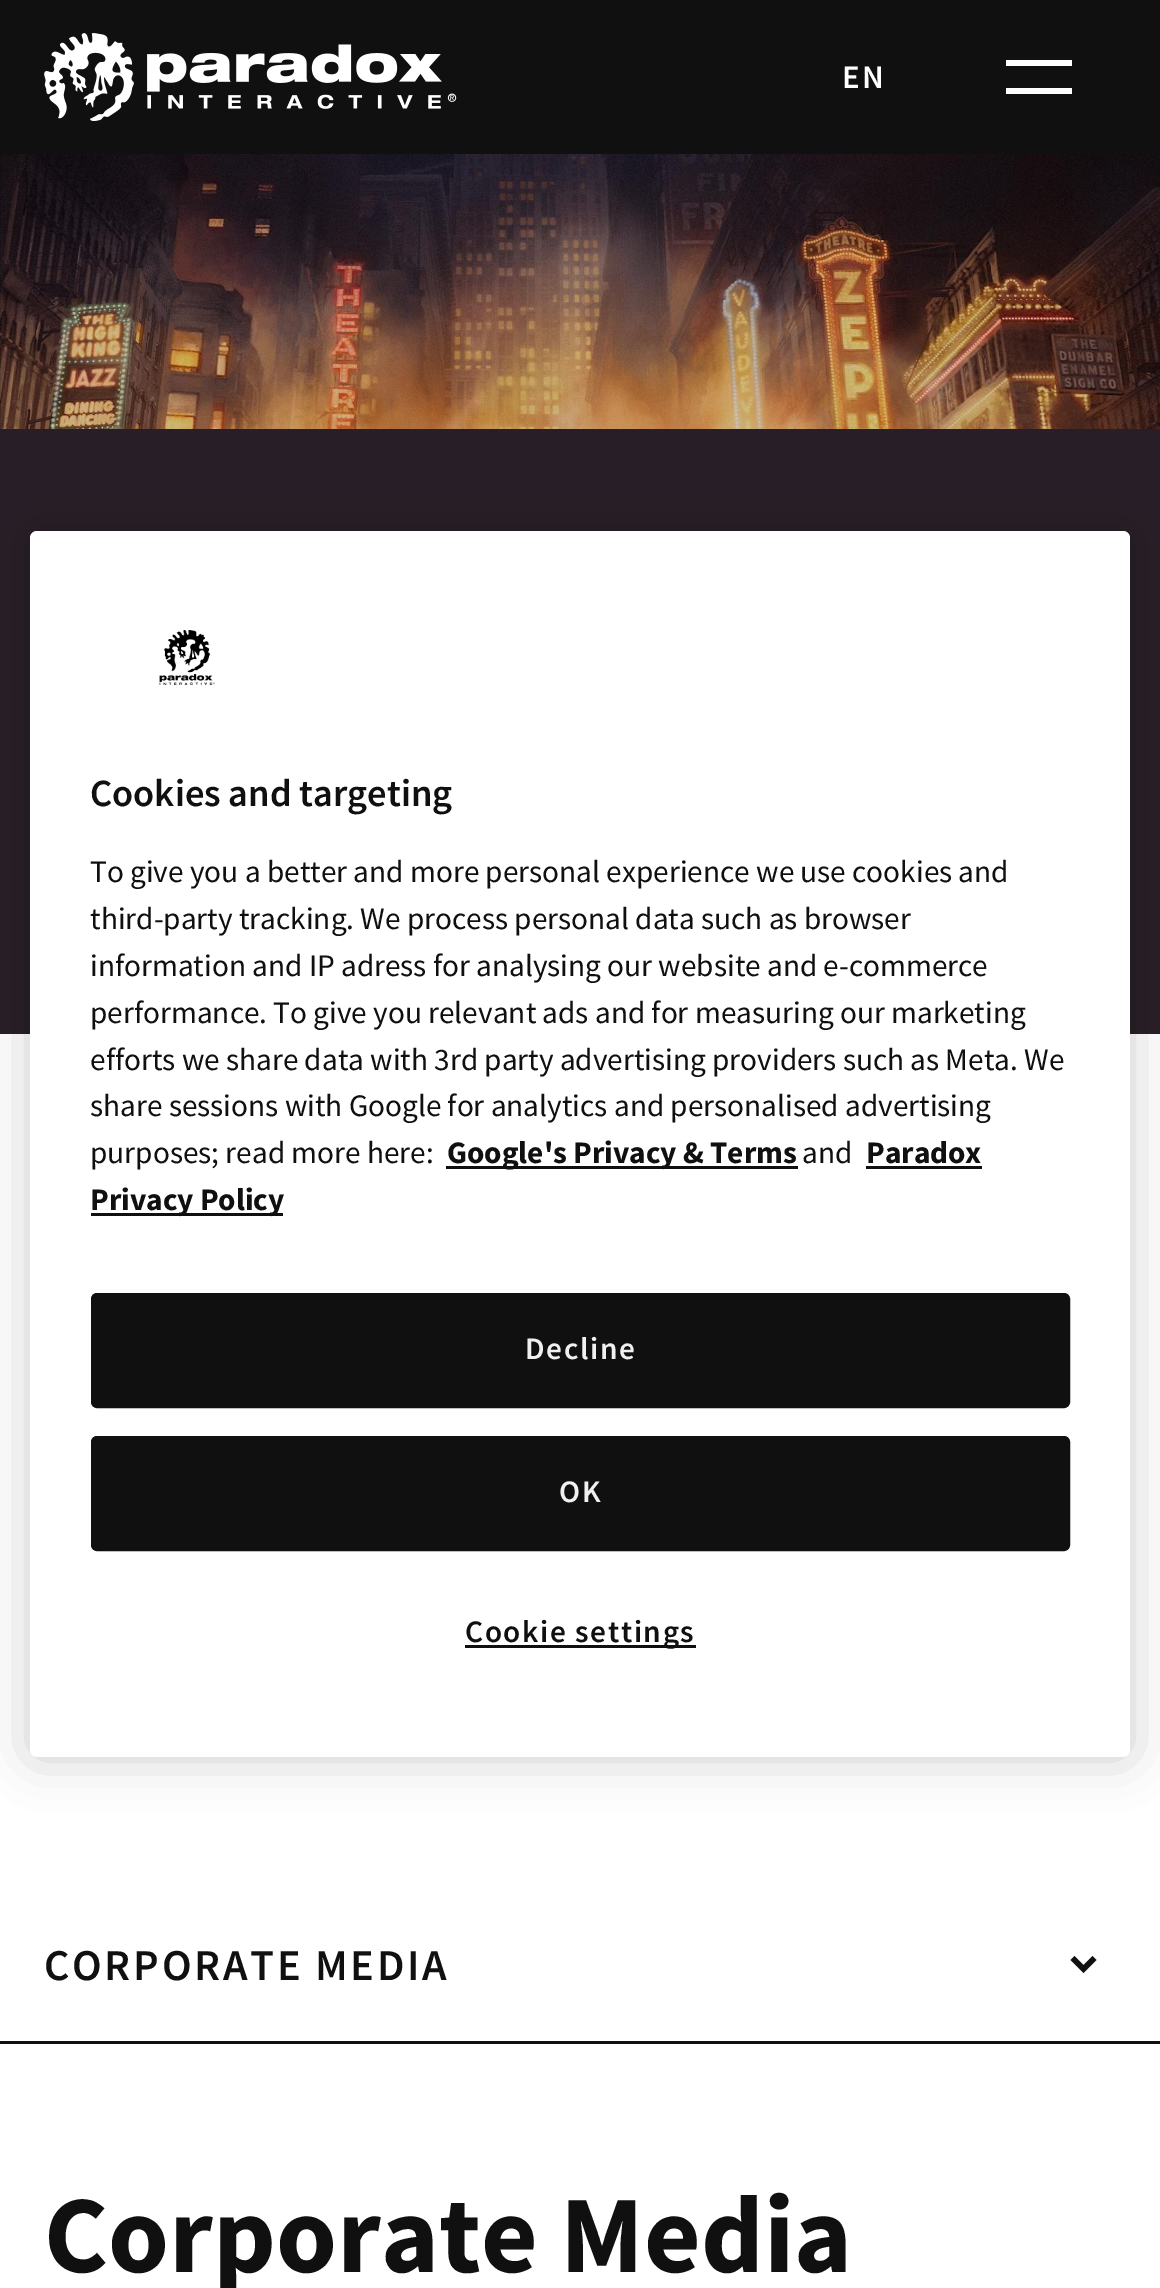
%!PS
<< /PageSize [1160 2288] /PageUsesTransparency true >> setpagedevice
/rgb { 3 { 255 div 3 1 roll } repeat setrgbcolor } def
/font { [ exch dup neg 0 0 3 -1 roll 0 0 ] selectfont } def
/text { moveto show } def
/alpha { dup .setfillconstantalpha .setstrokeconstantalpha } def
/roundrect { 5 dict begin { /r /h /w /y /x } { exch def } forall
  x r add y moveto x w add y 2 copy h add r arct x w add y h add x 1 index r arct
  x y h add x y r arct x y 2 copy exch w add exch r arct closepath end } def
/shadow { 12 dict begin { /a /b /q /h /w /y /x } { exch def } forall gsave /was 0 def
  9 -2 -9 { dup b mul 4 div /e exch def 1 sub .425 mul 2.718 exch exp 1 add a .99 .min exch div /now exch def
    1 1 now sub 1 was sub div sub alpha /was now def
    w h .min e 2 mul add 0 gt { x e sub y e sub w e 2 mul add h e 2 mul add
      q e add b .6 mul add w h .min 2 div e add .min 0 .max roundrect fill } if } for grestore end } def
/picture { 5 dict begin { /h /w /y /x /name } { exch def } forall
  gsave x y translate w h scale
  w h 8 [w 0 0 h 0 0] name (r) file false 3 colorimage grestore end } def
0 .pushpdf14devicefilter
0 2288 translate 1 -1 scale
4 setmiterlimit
255 255 255 rgb
0 0 1160 2288 rectfill
16 16 16 rgb
0 0 1160 154 rectfill
(img_01.rgb) 44 33 413 88 picture
255 255 255 rgb
1006 60 moveto 66 0 rlineto 0 6 rlineto -66 0 rlineto closepath 1006 88 moveto 66 0 rlineto 0 6 rlineto -66 0 rlineto closepath eofill
(img_02.rgb) 0 154 1160 275 picture
40 30 39 rgb
0 429 1160 605 rectfill
16 16 16 rgb
0 2041 1160 3 rectfill
1092.5 1956 moveto 4 4 rlineto -13 13 rlineto -13 -13 rlineto 4 -4 rlineto 9 9 rlineto closepath fill
0 0 0 rgb
30 531 1100 1226 7 25 0.2 shadow
255 255 255 rgb
30 531 1100 1226 7 roundrect fill
(img_03.rgb) 159 630 56 55 picture
16 16 16 rgb
446 1166 352 3 rectfill
866 1166 116 3 rectfill
91 1213 192 3 rectfill
92.5 1294.5 976 112 4.5 roundrect gsave fill grestore
3 setlinewidth
stroke
92.5 1437.5 976 112 4.5 roundrect gsave fill grestore
stroke
465 1645 231 3 rectfill
/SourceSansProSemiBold-SemiBold 33 font
255 255 255 rgb
842 88 moveto 2 0 (EN) ashow
/SourceSansProSemiBold-SemiBold 44 font
16 16 16 rgb
44 1980 moveto 2.75 0 (CORPORATE MEDIA) ashow
/SourceSansPro-Bold 110 font
(Corporate Media) 44 2272 text
/SourceSansProSemiBold-SemiBold 38.5 font
(Cookies and targeting) 90 806 text
/SourceSansPro-Regular 31.3 font
(To give you a better and more personal experience we use cookies and) 90 882 text
(third-party tracking. We process personal data such as browser) 90 929 text
(information and IP adress for analysing our website and e-commerce) 90 976 text
(performance. To give you relevant ads and for measuring our marketing) 90 1023 text
(efforts we share data with 3rd party advertising providers such as Meta. We) 90 1070 text
(share sessions with Google for analytics and personalised advertising) 90 1116 text
(purposes; read more here:) 90 1163 text
/SourceSansPro-Bold 31.3 font
(Google's Privacy & Terms) 447 1163 text
/SourceSansPro-Regular 31.3 font
(and) 802 1163 text
/SourceSansPro-Bold 31.3 font
(Paradox) 866 1163 text
(Privacy Policy) 90 1210 text
/SourceSansProSemiBold-SemiBold 31.3 font
240 240 240 rgb
525 1359 moveto 1.6 0 (Decline) ashow
559 1502 moveto 1.6 0 (OK) ashow
16 16 16 rgb
465 1642 moveto 1.6 0 (Cookie settings) ashow
.poppdf14devicefilter showpage
